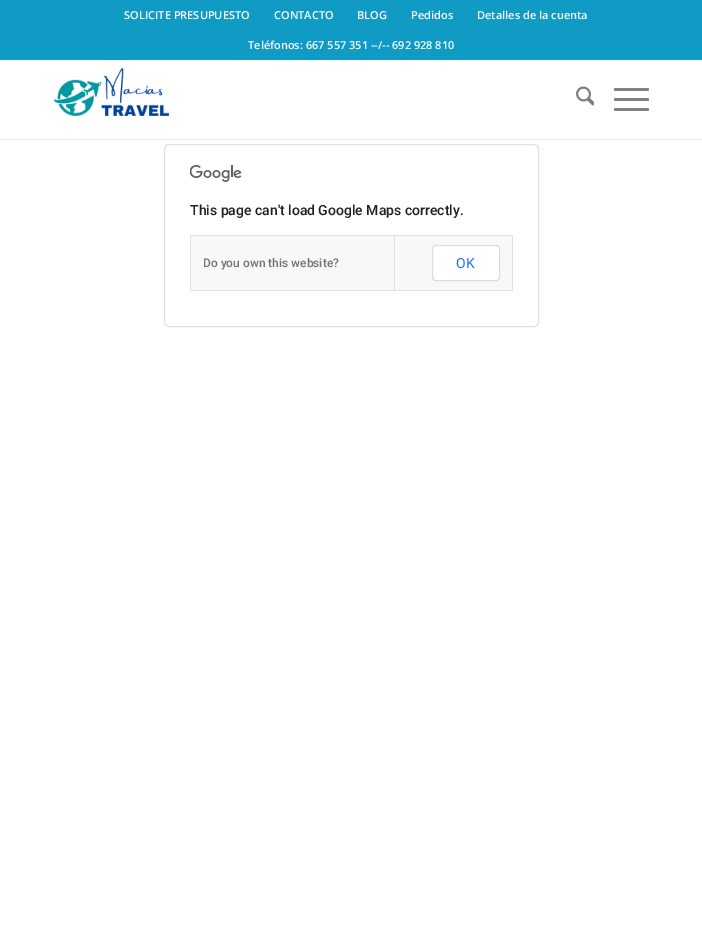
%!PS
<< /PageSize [702 932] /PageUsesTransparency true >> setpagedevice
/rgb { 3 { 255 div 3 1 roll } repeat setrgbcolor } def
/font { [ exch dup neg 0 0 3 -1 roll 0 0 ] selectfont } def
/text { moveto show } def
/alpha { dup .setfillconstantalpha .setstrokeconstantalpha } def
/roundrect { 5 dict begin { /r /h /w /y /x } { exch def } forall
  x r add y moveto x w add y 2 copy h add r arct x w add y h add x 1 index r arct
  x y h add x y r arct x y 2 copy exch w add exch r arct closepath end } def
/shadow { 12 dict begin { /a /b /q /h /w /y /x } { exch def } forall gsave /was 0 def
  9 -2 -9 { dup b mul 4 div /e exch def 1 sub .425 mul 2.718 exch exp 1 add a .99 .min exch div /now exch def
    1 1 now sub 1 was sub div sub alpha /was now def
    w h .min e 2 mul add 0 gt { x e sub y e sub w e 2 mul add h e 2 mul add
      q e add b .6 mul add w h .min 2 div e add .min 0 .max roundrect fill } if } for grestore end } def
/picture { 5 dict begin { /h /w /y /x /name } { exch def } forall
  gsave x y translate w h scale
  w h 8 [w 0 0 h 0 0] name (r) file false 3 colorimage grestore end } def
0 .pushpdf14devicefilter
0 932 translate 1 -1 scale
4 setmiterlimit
255 255 255 rgb
0 0 702 932 rectfill
gsave
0 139 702 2 rectclip
0 0 0 rgb
-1 -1 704 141 0 1 0.1 shadow
grestore
16 155 197 rgb
0 0 702 60 rectfill
(img_01.rgb) 53 67 116 49 picture
(img_02.rgb) 576 86 18 20 picture
128 128 128 rgb
614 98 35 3 1.5 roundrect fill
614 88 35 3 1.5 roundrect fill
614 108 35 3 1.5 roundrect fill
224 224 224 rgb
164.5 144.5 374 182 4.5 roundrect stroke
(img_03.rgb) 190 165 52 17 picture
248 248 248 rgb
191 236 321 54 rectfill
225 225 225 rgb
190 235 323 1 rectfill
512 235 1 56 rectfill
394 290 119 1 rectfill
394 235 1 56 rectfill
190 290 205 1 rectfill
190 235 1 56 rectfill
255 255 255 rgb
432.5 245.5 67 35 3.5 roundrect gsave fill grestore
218 220 224 rgb
stroke
/OpenSans-SemiBold 11 font
255 255 255 rgb
(SOLICITE PRESUPUESTO) 124 19 text
(CONTACTO) 274 19 text
(BLOG) 357 19 text
(Pedidos) 411 19 text
(Detalles de la cuenta) 477 19 text
(Teléfonos: 667 557 351 --/-- 692 928 810) 248 49 text
/Roboto-Medium 14 font
33 33 33 rgb
(This page can't load Google Maps correctly.) 190 215 text
/Roboto-Medium 12 font
114 114 114 rgb
(Do you own this website?) 203 267 text
/Roboto-Regular 14 font
26 115 232 rgb
(OK) 456 268 text
.poppdf14devicefilter showpage
